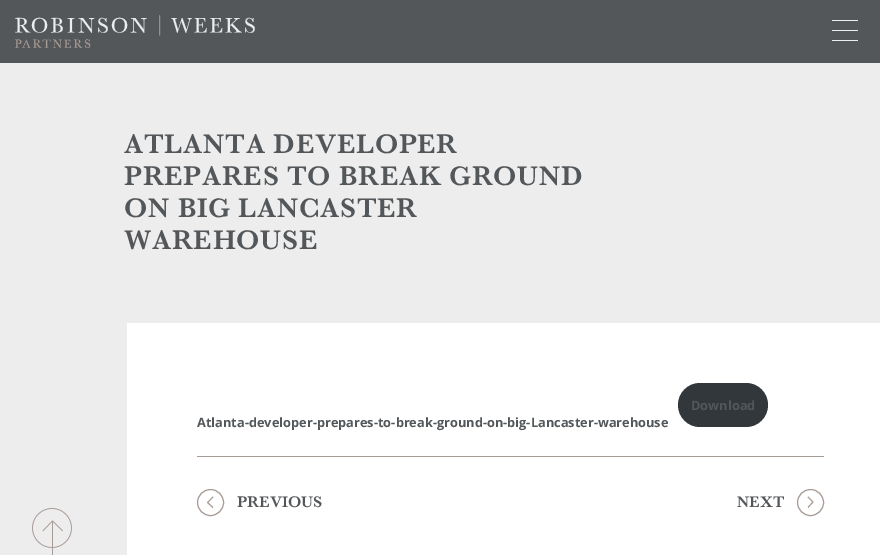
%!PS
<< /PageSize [880 555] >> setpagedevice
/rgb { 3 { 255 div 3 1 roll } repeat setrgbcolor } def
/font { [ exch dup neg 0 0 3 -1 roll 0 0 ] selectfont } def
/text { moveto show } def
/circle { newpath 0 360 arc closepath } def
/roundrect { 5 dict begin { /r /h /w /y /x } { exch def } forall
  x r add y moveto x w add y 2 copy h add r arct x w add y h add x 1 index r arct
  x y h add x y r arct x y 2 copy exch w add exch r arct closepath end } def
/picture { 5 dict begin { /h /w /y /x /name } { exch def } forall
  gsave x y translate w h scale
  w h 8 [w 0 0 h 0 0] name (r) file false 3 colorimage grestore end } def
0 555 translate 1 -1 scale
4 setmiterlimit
83 87 90 rgb
0 0 880 555 rectfill
(img_01.rgb) 15 15 240 33 picture
237 237 237 rgb
832 20 26 1 rectfill
832 30 26 1 rectfill
832 40 26 1 rectfill
0 63 880 492 rectfill
255 255 255 rgb
127 323 753 232 rectfill
50 55 60 rgb
678 383 90 44 22 roundrect fill
168 156 150 rgb
197 456 627 1 rectfill
210.5 502.5 13 circle stroke
gsave
210.5 496 moveto 0.5 0 rlineto 1.5 0 3 3 3 6.5 rcurveto 0 3 -1.5 6 -3 6 rcurveto -0.5 0 rlineto -2 0 -3.5 -3 -3.5 -6 rcurveto 0 -3.5 1.5 -6.5 3.5 -6.5 rcurveto closepath clip newpath
1 setlinejoin
213.5 496.5 moveto -6 6 rlineto 6 5.5 rlineto stroke
grestore
810.5 502.5 13 circle stroke
gsave
810.5 496 moveto 2 0 3.5 3 3.5 6.5 rcurveto 0 3 -1.5 6 -3.5 6 rcurveto -2 0 -3.5 -3 -3.5 -6 rcurveto 0 -3.5 1.5 -6.5 3.5 -6.5 rcurveto closepath clip newpath
1 setlinejoin
807.5 508 moveto 5.5 -6 rlineto -5.5 -5.5 rlineto stroke
grestore
(img_02.rgb) 32 508 40 47 picture
/Baskerville-SemiBold 28 font
83 87 90 rgb
124 153 moveto 0.7 0 (ATLANTA DEVELOPER) ashow
124 185 moveto 0.7 0 (PREPARES TO BREAK GROUND) ashow
124 217 moveto 0.7 0 (ON BIG LANCASTER) ashow
124 249 moveto 0.7 0 (WAREHOUSE) ashow
/OpenSans-Bold 12.8 font
(Download) 691 410 text
(Atlanta-developer-prepares-to-break-ground-on-big-Lancaster-warehouse) 197 427 text
/Baskerville-SemiBold 16 font
(PREVIOUS) 237 507 text
(NEXT) 737 507 text
showpage
